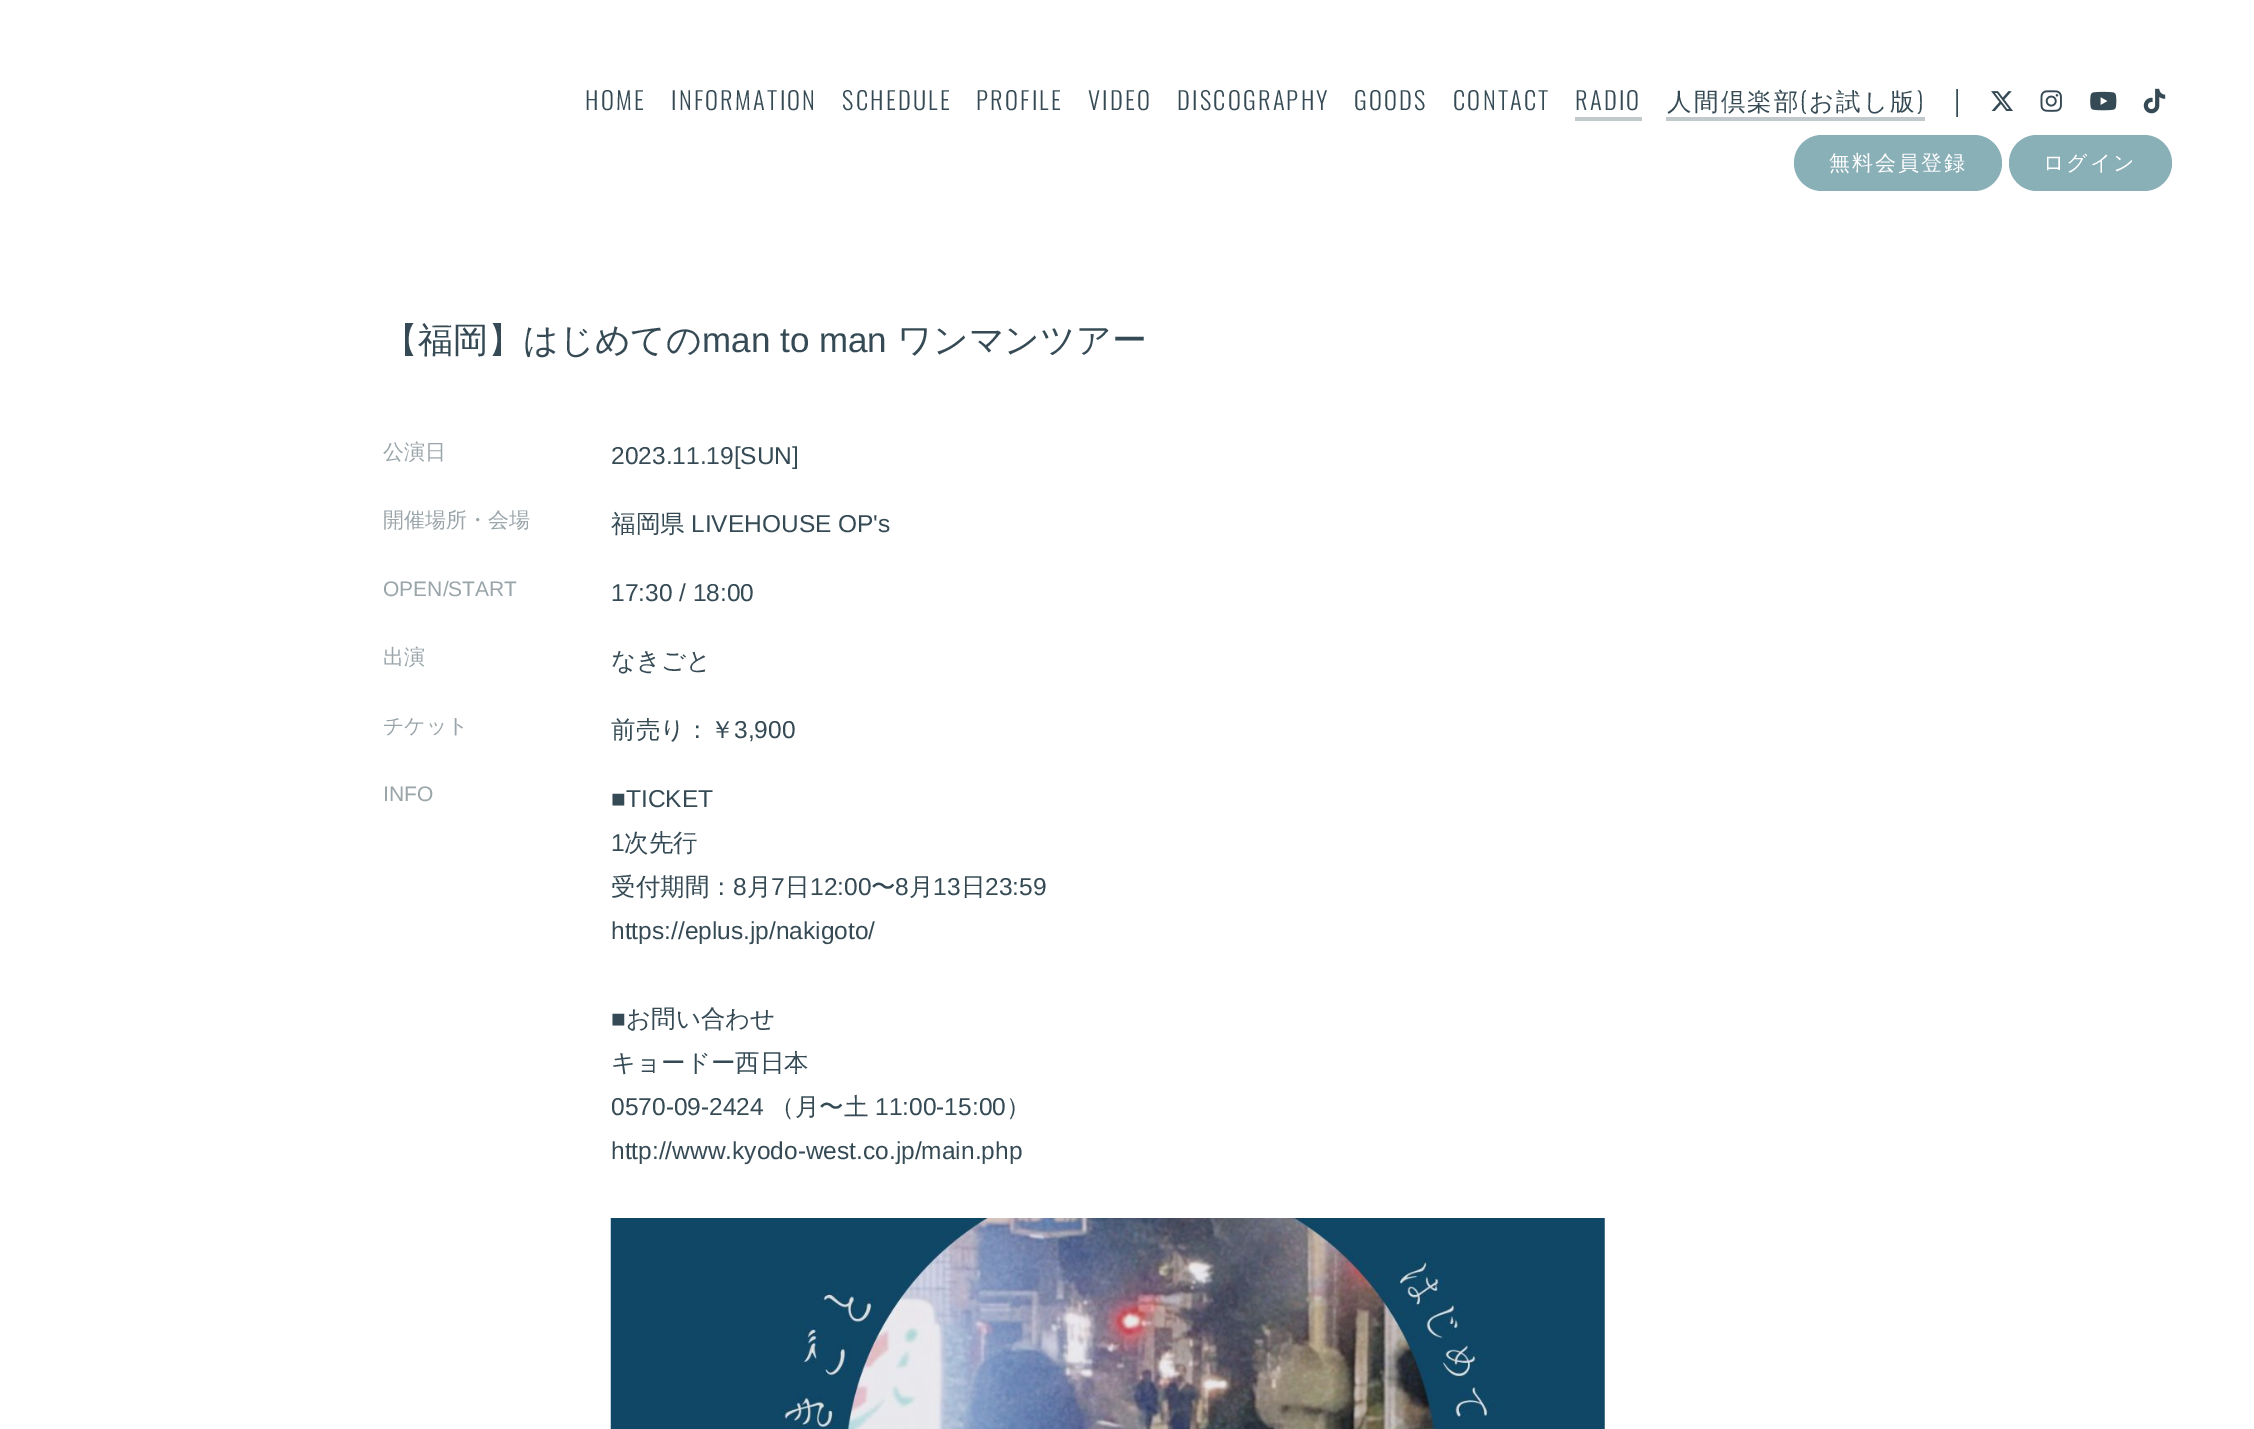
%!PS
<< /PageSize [2254 1429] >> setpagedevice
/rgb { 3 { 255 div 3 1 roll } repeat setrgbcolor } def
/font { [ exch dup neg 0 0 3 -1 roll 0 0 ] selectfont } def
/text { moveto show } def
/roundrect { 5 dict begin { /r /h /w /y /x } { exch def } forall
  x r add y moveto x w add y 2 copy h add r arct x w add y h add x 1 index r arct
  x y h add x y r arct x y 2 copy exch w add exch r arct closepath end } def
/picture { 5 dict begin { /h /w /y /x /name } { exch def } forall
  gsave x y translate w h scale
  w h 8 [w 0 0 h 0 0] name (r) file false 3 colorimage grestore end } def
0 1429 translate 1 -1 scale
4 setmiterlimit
255 255 255 rgb
0 0 2254 1429 rectfill
194 201 204 rgb
1575 117 67 4 rectfill
1666 117 259 4 rectfill
(img_01.rgb) 1991 91 22 20 picture
(img_02.rgb) 2040 90 22 22 picture
(img_03.rgb) 2090 91 27 20 picture
(img_04.rgb) 2143 88 23 26 picture
137 175 183 rgb
1794 135 208 56 28 roundrect fill
2009 135 163 56 28 roundrect fill
(img_05.rgb) 610 1218 995 211 picture
/Oswald-Light 24.5 font
53 74 84 rgb
585 110 moveto 2.25 0 (HOME) ashow
671 110 moveto 2.25 0 (INFORMATION) ashow
842 110 moveto 2.25 0 (SCHEDULE) ashow
976 110 moveto 2.25 0 (PROFILE) ashow
1088 110 moveto 2.25 0 (VIDEO) ashow
1177 110 moveto 2.25 0 (DISCOGRAPHY) ashow
1354 110 moveto 2.25 0 (GOODS) ashow
1453 110 moveto 2.25 0 (CONTACT) ashow
1575 110 moveto 2.25 0 (RADIO) ashow
/WenQuanYiZenHei-Medium 24.5 font
1667 110 moveto 2.25 0 (人間倶楽部) ashow
/Oswald-Light 24.5 font
1800 110 moveto 2.25 0 (\() ashow
/WenQuanYiZenHei-Medium 24.5 font
1809 110 moveto 2.25 0 (お試し版) ashow
/Oswald-Light 24.5 font
1917 110 moveto 2.25 0 (\)) ashow
/LiberationSans-Regular 23 font
1951 110 moveto 2 0 (│) ashow
/WenQuanYiZenHei-Medium 21 font
255 255 255 rgb
1829 170 moveto 2 0 (無料会員登録) ashow
2043 170 moveto 2 0 (ログイン) ashow
/WenQuanYiZenHei-Medium 35 font
53 74 84 rgb
(【福岡】はじめての) 383 352 text
/LiberationSans-Regular 35 font
(man to man) 702 352 text
/WenQuanYiZenHei-Medium 35 font
(ワンマンツアー) 897 352 text
/WenQuanYiZenHei-Medium 21 font
154 165 170 rgb
(公演日) 383 459 text
/LiberationSans-Regular 24.5 font
53 74 84 rgb
(2023.11.19[SUN]) 611 464 text
/WenQuanYiZenHei-Medium 21 font
154 165 170 rgb
(開催場所・会場) 383 527 text
/WenQuanYiZenHei-Medium 24.5 font
53 74 84 rgb
(福岡県) 611 532 text
/LiberationSans-Regular 24.5 font
(LIVEHOUSE OP's) 691 532 text
/LiberationSans-Regular 21 font
154 165 170 rgb
(OPEN/START) 383 596 text
/LiberationSans-Regular 24.5 font
53 74 84 rgb
(17:30 / 18:00) 611 601 text
/WenQuanYiZenHei-Medium 21 font
154 165 170 rgb
(出演) 383 664 text
/WenQuanYiZenHei-Medium 24.5 font
53 74 84 rgb
(なきごと) 611 669 text
/WenQuanYiZenHei-Medium 21 font
154 165 170 rgb
(チケット) 383 733 text
/WenQuanYiZenHei-Medium 24.5 font
53 74 84 rgb
(前売り：￥) 611 738 text
/LiberationSans-Regular 24.5 font
(3,900) 734 738 text
/LiberationSans-Regular 21 font
154 165 170 rgb
(INFO) 383 801 text
/LiberationSans-Regular 24.5 font
53 74 84 rgb
(■TICKET) 611 807 text
(1) 611 851 text
/WenQuanYiZenHei-Medium 24.5 font
(次先行) 624 851 text
(受付期間：) 611 895 text
/LiberationSans-Regular 24.5 font
(8) 733 895 text
/WenQuanYiZenHei-Medium 24.5 font
(月) 747 895 text
/LiberationSans-Regular 24.5 font
(7) 771 895 text
/WenQuanYiZenHei-Medium 24.5 font
(日) 785 895 text
/LiberationSans-Regular 24.5 font
(12:00) 810 895 text
/WenQuanYiZenHei-Medium 24.5 font
(〜) 871 895 text
/LiberationSans-Regular 24.5 font
(8) 895 895 text
/WenQuanYiZenHei-Medium 24.5 font
(月) 909 895 text
/LiberationSans-Regular 24.5 font
(13) 933 895 text
/WenQuanYiZenHei-Medium 24.5 font
(日) 961 895 text
/LiberationSans-Regular 24.5 font
(23:59) 985 895 text
(https://eplus.jp/nakigoto/) 611 939 text
(■) 611 1027 text
/WenQuanYiZenHei-Medium 24.5 font
(お問い合わせ) 626 1027 text
(キョードー西日本) 611 1071 text
/LiberationSans-Regular 24.5 font
(0570-09-2424) 611 1115 text
/WenQuanYiZenHei-Medium 24.5 font
(（月〜土) 770 1115 text
/LiberationSans-Regular 24.5 font
(11:00-15:00) 875 1115 text
/WenQuanYiZenHei-Medium 24.5 font
(）) 1006 1115 text
/LiberationSans-Regular 24.5 font
(http://www.kyodo-west.co.jp/main.php) 611 1159 text
showpage
